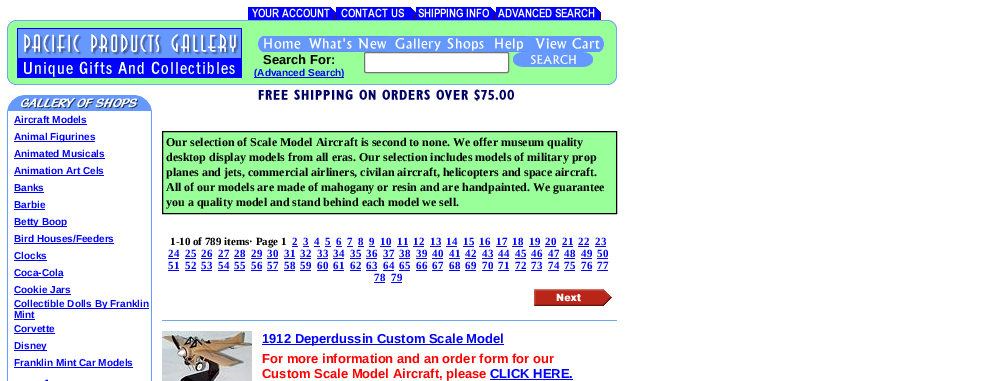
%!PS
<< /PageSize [1003 381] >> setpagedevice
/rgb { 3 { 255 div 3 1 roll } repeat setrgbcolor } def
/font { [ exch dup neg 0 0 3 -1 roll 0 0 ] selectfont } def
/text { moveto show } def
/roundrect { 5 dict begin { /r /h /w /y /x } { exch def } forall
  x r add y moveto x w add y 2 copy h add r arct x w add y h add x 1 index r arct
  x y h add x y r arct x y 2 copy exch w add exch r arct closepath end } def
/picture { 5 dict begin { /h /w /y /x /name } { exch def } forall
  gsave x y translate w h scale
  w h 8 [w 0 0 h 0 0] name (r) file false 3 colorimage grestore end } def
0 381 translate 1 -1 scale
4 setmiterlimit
255 255 255 rgb
0 0 1003 381 rectfill
(img_01.rgb) 248 7 88 13 picture
(img_02.rgb) 336 7 80 13 picture
(img_03.rgb) 416 7 80 13 picture
(img_04.rgb) 496 7 105 13 picture
(img_05.rgb) 7 20 10 65 picture
110 168 239 rgb
17 20 590 1 rectfill
153 255 153 rgb
17 21 225 7 rectfill
(img_06.rgb) 17 28 225 50 picture
17 78 225 6 rectfill
110 168 239 rgb
17 84 590 1 rectfill
153 255 153 rgb
242 21 6 63 rectfill
248 21 359 31 rectfill
(img_07.rgb) 607 20 10 65 picture
(img_08.rgb) 258 36 45 16 picture
102 153 255 rgb
303 36 6 16 rectfill
(img_09.rgb) 309 36 78 16 picture
387 36 6 16 rectfill
(img_10.rgb) 393 36 93 16 picture
486 36 6 16 rectfill
(img_11.rgb) 492 36 34 16 picture
526 36 6 16 rectfill
(img_12.rgb) 532 36 72 16 picture
153 255 153 rgb
248 52 359 32 rectfill
0 0 255 rgb
254 77 90 1 rectfill
255 255 255 rgb
364.5 52.5 144 20 1.5 roundrect gsave fill grestore
118 118 118 rgb
stroke
(img_13.rgb) 513 52 80 15 picture
(img_14.rgb) 7 95 145 16 picture
102 153 255 rgb
7 111 1 270 rectfill
0 0 255 rgb
14 124 73 1 rectfill
14 141 81 1 rectfill
14 158 91 1 rectfill
14 175 90 1 rectfill
14 192 30 1 rectfill
14 209 31 1 rectfill
14 226 53 1 rectfill
14 243 100 1 rectfill
14 260 33 1 rectfill
14 277 49 1 rectfill
14 294 57 1 rectfill
14 308 135 1 rectfill
14 319 21 1 rectfill
14 333 41 1 rectfill
14 350 33 1 rectfill
14 367 119 1 rectfill
102 153 255 rgb
151 111 1 270 rectfill
(img_15.rgb) 258 89 256 12 picture
153 255 153 rgb
162.5 131.5 moveto 454 0 rlineto 0 82 rlineto -454 0 rlineto closepath gsave fill grestore
0 0 0 rgb
stroke
0 0 255 rgb
292 246 6 1 rectfill
303 246 6 1 rectfill
314 246 6 1 rectfill
325 246 6 1 rectfill
336 246 6 1 rectfill
347 246 6 1 rectfill
358 246 6 1 rectfill
369 246 6 1 rectfill
380 246 11 1 rectfill
397 246 11 1 rectfill
413 246 11 1 rectfill
430 246 11 1 rectfill
446 246 11 1 rectfill
463 246 11 1 rectfill
479 246 11 1 rectfill
496 246 11 1 rectfill
512 246 11 1 rectfill
529 246 11 1 rectfill
545 246 11 1 rectfill
562 246 11 1 rectfill
578 246 11 1 rectfill
595 246 11 1 rectfill
168 258 11 1 rectfill
185 258 11 1 rectfill
201 258 11 1 rectfill
218 258 11 1 rectfill
234 258 11 1 rectfill
251 258 11 1 rectfill
267 258 11 1 rectfill
284 258 11 1 rectfill
300 258 11 1 rectfill
317 258 11 1 rectfill
333 258 11 1 rectfill
350 258 11 1 rectfill
366 258 11 1 rectfill
383 258 11 1 rectfill
399 258 11 1 rectfill
416 258 11 1 rectfill
432 258 11 1 rectfill
449 258 11 1 rectfill
465 258 11 1 rectfill
482 258 11 1 rectfill
498 258 11 1 rectfill
515 258 11 1 rectfill
531 258 11 1 rectfill
548 258 11 1 rectfill
564 258 11 1 rectfill
581 258 11 1 rectfill
597 258 11 1 rectfill
168 270 11 1 rectfill
185 270 11 1 rectfill
201 270 11 1 rectfill
218 270 11 1 rectfill
234 270 11 1 rectfill
251 270 11 1 rectfill
267 270 11 1 rectfill
284 270 11 1 rectfill
300 270 11 1 rectfill
317 270 11 1 rectfill
333 270 11 1 rectfill
350 270 11 1 rectfill
366 270 11 1 rectfill
383 270 11 1 rectfill
399 270 11 1 rectfill
416 270 11 1 rectfill
432 270 11 1 rectfill
449 270 11 1 rectfill
465 270 11 1 rectfill
482 270 11 1 rectfill
498 270 11 1 rectfill
515 270 11 1 rectfill
531 270 11 1 rectfill
548 270 11 1 rectfill
564 270 11 1 rectfill
581 270 11 1 rectfill
597 270 11 1 rectfill
374 282 11 1 rectfill
391 282 11 1 rectfill
(img_16.rgb) 534 289 78 17 picture
110 168 239 rgb
162 320 455 1 rectfill
(img_17.rgb) 162 331 90 50 picture
0 0 255 rgb
262 344 242 1 rectfill
490 379 83 1 rectfill
/LiberationSans-Bold 13 font
0 0 0 rgb
(Search For:) 263 64 text
/LiberationSans-Bold 10 font
0 0 255 rgb
(\(Advanced Search\)) 254 76 text
(Aircraft Models) 14 123 text
(Animal Figurines) 14 140 text
(Animated Musicals) 14 157 text
(Animation Art Cels) 14 174 text
(Banks) 14 191 text
(Barbie) 14 208 text
(Betty Boop) 14 225 text
(Bird Houses/Feeders) 14 242 text
(Clocks) 14 259 text
(Coca-Cola) 14 276 text
(Cookie Jars) 14 293 text
(Collectible Dolls By Franklin) 14 307 text
(Mint) 14 318 text
(Corvette) 14 332 text
(Disney) 14 349 text
(Franklin Mint Car Models) 14 366 text
(-) 45 383 text
/LiberationSerif-Bold 12 font
0 0 0 rgb
(Our selection of Scale Model Aircraft is second to none. We offer museum quality) 166 146 text
(desktop display models from all eras. Our selection includes models of military prop) 166 161 text
(planes and jets, commercial airliners, civilan aircraft, helicopters and space aircraft.) 166 176 text
(All of our models are made of mahogany or resin and are handpainted. We guarantee) 166 191 text
(you a quality model and stand behind each model we sell.) 166 206 text
/LiberationSerif-Bold 11 font
(1-10 of 789 items· Page 1) 170 245 text
0 0 255 rgb
(2) 292 245 text
(3) 303 245 text
(4) 314 245 text
(5) 325 245 text
(6) 336 245 text
(7) 347 245 text
(8) 358 245 text
(9) 369 245 text
(10) 380 245 text
(11) 397 245 text
(12) 413 245 text
(13) 430 245 text
(14) 446 245 text
(15) 463 245 text
(16) 479 245 text
(17) 496 245 text
(18) 512 245 text
(19) 529 245 text
(20) 545 245 text
(21) 562 245 text
(22) 578 245 text
(23) 595 245 text
(24) 168 257 text
(25) 185 257 text
(26) 201 257 text
(27) 218 257 text
(28) 234 257 text
(29) 251 257 text
(30) 267 257 text
(31) 284 257 text
(32) 300 257 text
(33) 317 257 text
(34) 333 257 text
(35) 350 257 text
(36) 366 257 text
(37) 383 257 text
(38) 399 257 text
(39) 416 257 text
(40) 432 257 text
(41) 449 257 text
(42) 465 257 text
(43) 482 257 text
(44) 498 257 text
(45) 515 257 text
(46) 531 257 text
(47) 548 257 text
(48) 564 257 text
(49) 581 257 text
(50) 597 257 text
(51) 168 269 text
(52) 185 269 text
(53) 201 269 text
(54) 218 269 text
(55) 234 269 text
(56) 251 269 text
(57) 267 269 text
(58) 284 269 text
(59) 300 269 text
(60) 317 269 text
(61) 333 269 text
(62) 350 269 text
(63) 366 269 text
(64) 383 269 text
(65) 399 269 text
(66) 416 269 text
(67) 432 269 text
(68) 449 269 text
(69) 465 269 text
(70) 482 269 text
(71) 498 269 text
(72) 515 269 text
(73) 531 269 text
(74) 548 269 text
(75) 564 269 text
(76) 581 269 text
(77) 597 269 text
(78) 374 281 text
(79) 391 281 text
/LiberationSans-Bold 13 font
(1912 Deperdussin Custom Scale Model) 262 343 text
255 0 0 rgb
(For more information and an order form for our) 262 363 text
(Custom Scale Model Aircraft, please) 262 378 text
0 0 255 rgb
(CLICK HERE.) 490 378 text
showpage
